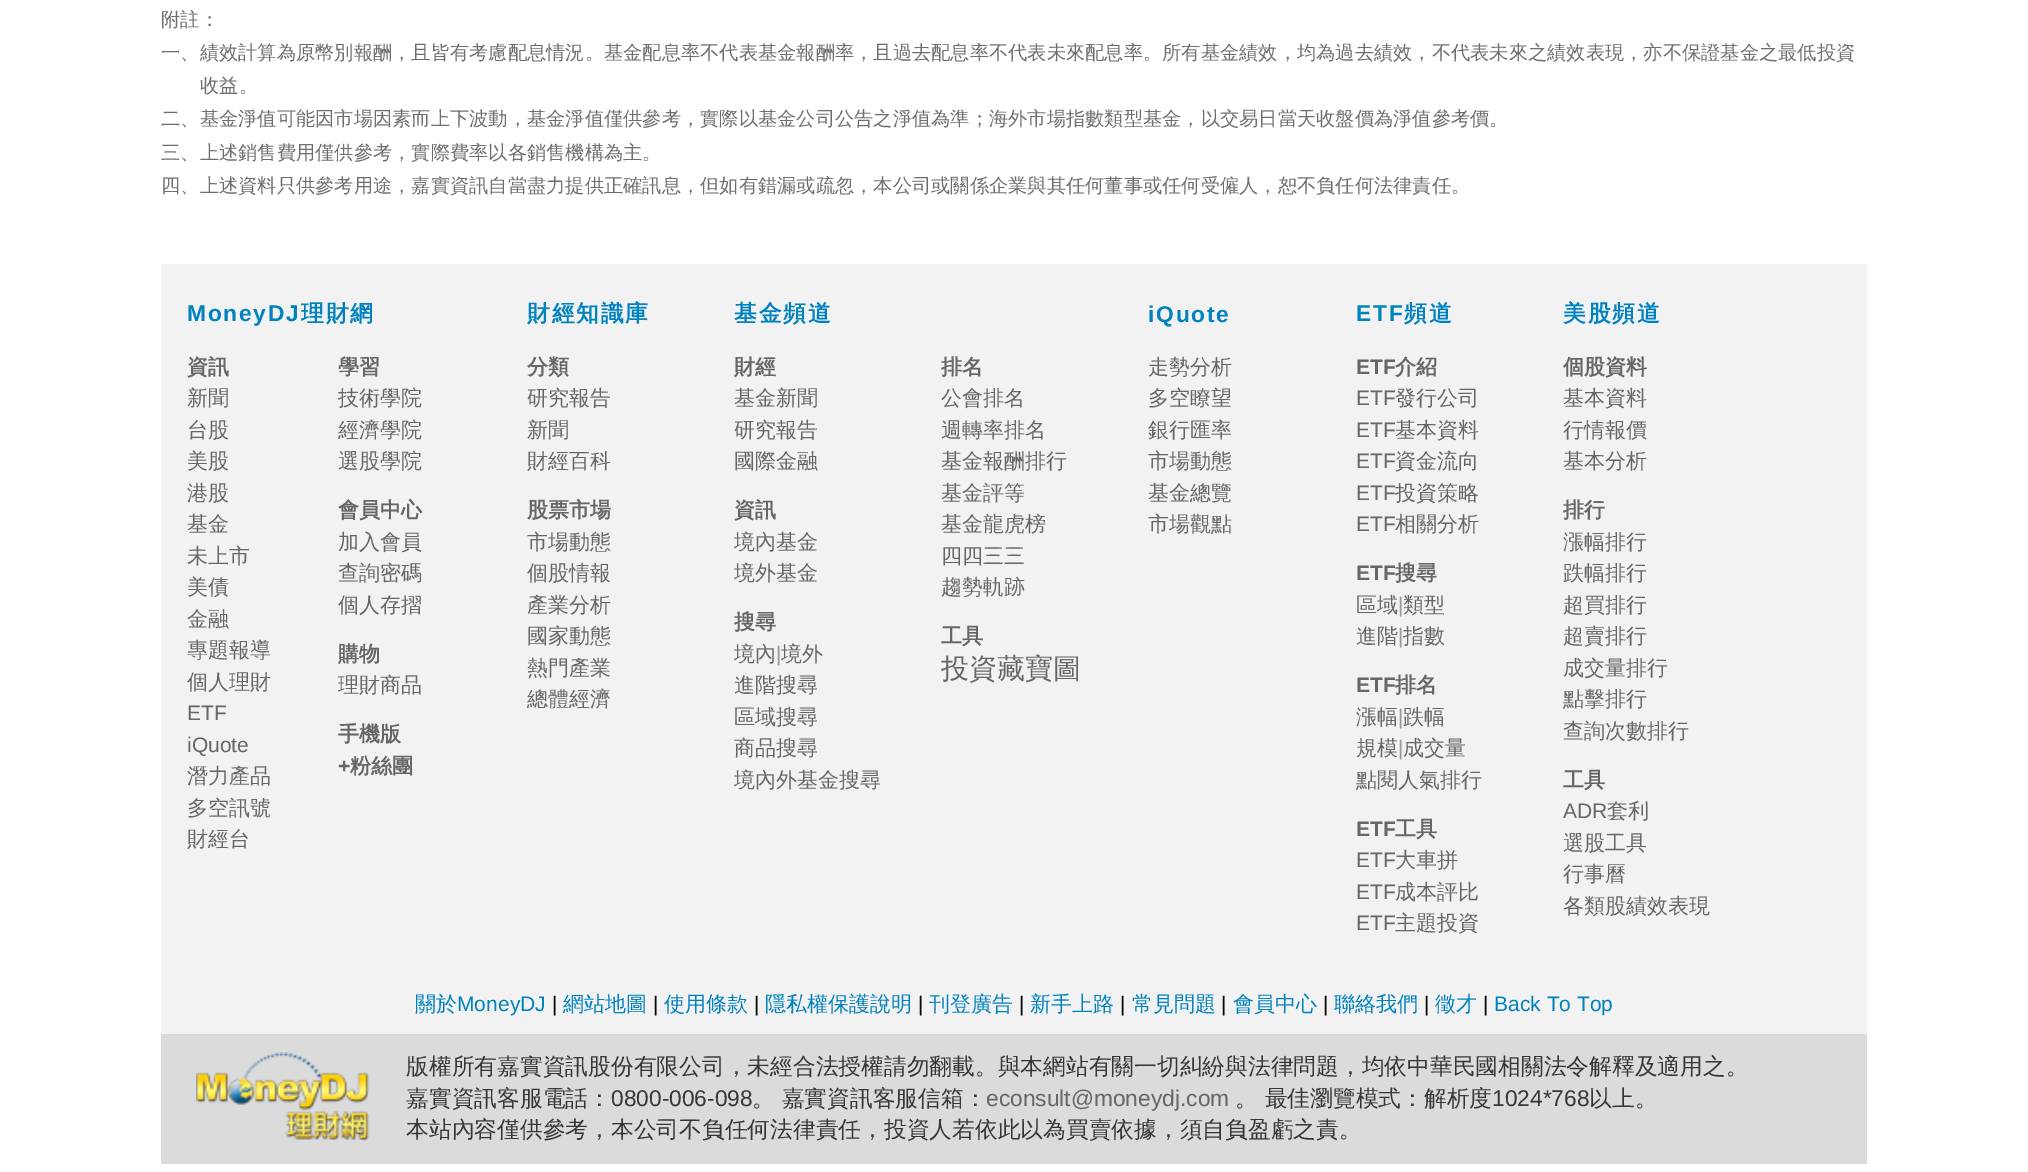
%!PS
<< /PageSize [2028 1172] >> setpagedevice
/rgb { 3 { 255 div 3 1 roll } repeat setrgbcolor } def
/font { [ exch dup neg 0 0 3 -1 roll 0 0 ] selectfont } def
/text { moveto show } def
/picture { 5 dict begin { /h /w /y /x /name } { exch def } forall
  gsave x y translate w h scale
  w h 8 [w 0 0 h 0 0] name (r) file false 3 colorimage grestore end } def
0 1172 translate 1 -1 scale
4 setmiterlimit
255 255 255 rgb
0 0 2028 1172 rectfill
242 242 242 rgb
161 264 1706 770 rectfill
219 219 219 rgb
161 1034 1706 130 rectfill
(img_01.rgb) 196 1052 174 90 picture
/WenQuanYiZenHei-Medium 19.25 font
109 110 113 rgb
(附註：) 161 26 text
(一、績效計算為原幣別報酬，且皆有考慮配息情況。基金配息率不代表基金報酬率，且過去配息率不代表未來配息率。所有基金績效，均為過去績效，不代表未來之績效表現，亦不保證基金之最低投資) 161 59 text
(收益。) 200 92 text
(二、基金淨值可能因市場因素而上下波動，基金淨值僅供參考，實際以基金公司公告之淨值為準；海外市場指數類型基金，以交易日當天收盤價為淨值參考價。) 161 125 text
(三、上述銷售費用僅供參考，實際費率以各銷售機構為主。) 161 159 text
(四、上述資料只供參考用途，嘉實資訊自當盡力提供正確訊息，但如有錯漏或疏忽，本公司或關係企業與其任何董事或任何受僱人，恕不負任何法律責任。) 161 192 text
/LiberationSans-Bold 22.75 font
0 130 191 rgb
187 321 moveto 1.75 0 (MoneyDJ) ashow
/WenQuanYiZenHei-Bold 22.75 font
301 321 moveto 1.75 0 (理財網) ashow
527 321 moveto 1.75 0 (財經知識庫) ashow
734 321 moveto 1.75 0 (基金頻道) ashow
/LiberationSans-Bold 22.75 font
1148 322 moveto 1.75 0 (iQuote) ashow
1356 321 moveto 1.75 0 (ETF) ashow
/WenQuanYiZenHei-Bold 22.75 font
1404 321 moveto 1.75 0 (頻道) ashow
1563 321 moveto 1.75 0 (美股頻道) ashow
/WenQuanYiZenHei-Bold 21 font
102 102 102 rgb
(資訊) 187 374 text
/WenQuanYiZenHei-Medium 21 font
(新聞) 187 405 text
(台股) 187 437 text
(美股) 187 468 text
(港股) 187 500 text
(基金) 187 531 text
(未上市) 187 563 text
(美債) 187 594 text
(金融) 187 626 text
(專題報導) 187 657 text
(個人理財) 187 689 text
/LiberationSans-Regular 21 font
(ETF) 187 720 text
(iQuote) 187 752 text
/WenQuanYiZenHei-Medium 21 font
(潛力產品) 187 783 text
(多空訊號) 187 815 text
(財經台) 187 846 text
/WenQuanYiZenHei-Bold 21 font
(學習) 338 374 text
/WenQuanYiZenHei-Medium 21 font
(技術學院) 338 405 text
(經濟學院) 338 437 text
(選股學院) 338 468 text
/WenQuanYiZenHei-Bold 21 font
(會員中心) 338 517 text
/WenQuanYiZenHei-Medium 21 font
(加入會員) 338 549 text
(查詢密碼) 338 580 text
(個人存摺) 338 612 text
/WenQuanYiZenHei-Bold 21 font
(購物) 338 661 text
/WenQuanYiZenHei-Medium 21 font
(理財商品) 338 692 text
/WenQuanYiZenHei-Bold 21 font
(手機版) 338 741 text
/LiberationSans-Bold 21 font
(+) 338 773 text
/WenQuanYiZenHei-Bold 21 font
(粉絲團) 350 773 text
(分類) 527 374 text
/WenQuanYiZenHei-Medium 21 font
(研究報告) 527 405 text
(新聞) 527 437 text
(財經百科) 527 468 text
/WenQuanYiZenHei-Bold 21 font
(股票市場) 527 517 text
/WenQuanYiZenHei-Medium 21 font
(市場動態) 527 549 text
(個股情報) 527 580 text
(產業分析) 527 612 text
(國家動態) 527 643 text
(熱門產業) 527 675 text
(總體經濟) 527 706 text
/WenQuanYiZenHei-Bold 21 font
(財經) 734 374 text
/WenQuanYiZenHei-Medium 21 font
(基金新聞) 734 405 text
(研究報告) 734 437 text
(國際金融) 734 468 text
/WenQuanYiZenHei-Bold 21 font
(資訊) 734 517 text
/WenQuanYiZenHei-Medium 21 font
(境內基金) 734 549 text
(境外基金) 734 580 text
/WenQuanYiZenHei-Bold 21 font
(搜尋) 734 629 text
/WenQuanYiZenHei-Medium 21 font
(境內) 734 661 text
/LiberationSans-Regular 21 font
153 153 153 rgb
(|) 776 661 text
/WenQuanYiZenHei-Medium 21 font
102 102 102 rgb
(境外) 781 661 text
(進階搜尋) 734 692 text
(區域搜尋) 734 724 text
(商品搜尋) 734 755 text
(境內外基金搜尋) 734 787 text
/WenQuanYiZenHei-Bold 21 font
(排名) 941 374 text
/WenQuanYiZenHei-Medium 21 font
(公會排名) 941 405 text
(週轉率排名) 941 437 text
(基金報酬排行) 941 468 text
(基金評等) 941 500 text
(基金龍虎榜) 941 531 text
(四四三三) 941 563 text
(趨勢軌跡) 941 594 text
/WenQuanYiZenHei-Bold 21 font
(工具) 941 643 text
/WenQuanYiZenHei-Medium 28 font
(投資藏寶圖) 941 678 text
/WenQuanYiZenHei-Medium 21 font
(走勢分析) 1148 374 text
(多空瞭望) 1148 405 text
(銀行匯率) 1148 437 text
(市場動態) 1148 468 text
(基金總覽) 1148 500 text
(市場觀點) 1148 531 text
/LiberationSans-Bold 21 font
(ETF) 1356 374 text
/WenQuanYiZenHei-Bold 21 font
(介紹) 1395 374 text
/LiberationSans-Regular 21 font
(ETF) 1356 405 text
/WenQuanYiZenHei-Medium 21 font
(發行公司) 1395 405 text
/LiberationSans-Regular 21 font
(ETF) 1356 437 text
/WenQuanYiZenHei-Medium 21 font
(基本資料) 1395 437 text
/LiberationSans-Regular 21 font
(ETF) 1356 468 text
/WenQuanYiZenHei-Medium 21 font
(資金流向) 1395 468 text
/LiberationSans-Regular 21 font
(ETF) 1356 500 text
/WenQuanYiZenHei-Medium 21 font
(投資策略) 1395 500 text
/LiberationSans-Regular 21 font
(ETF) 1356 531 text
/WenQuanYiZenHei-Medium 21 font
(相關分析) 1395 531 text
/LiberationSans-Bold 21 font
(ETF) 1356 580 text
/WenQuanYiZenHei-Bold 21 font
(搜尋) 1395 580 text
/WenQuanYiZenHei-Medium 21 font
(區域) 1356 612 text
/LiberationSans-Regular 21 font
153 153 153 rgb
(|) 1398 612 text
/WenQuanYiZenHei-Medium 21 font
102 102 102 rgb
(類型) 1403 612 text
(進階) 1356 643 text
/LiberationSans-Regular 21 font
153 153 153 rgb
(|) 1398 643 text
/WenQuanYiZenHei-Medium 21 font
102 102 102 rgb
(指數) 1403 643 text
/LiberationSans-Bold 21 font
(ETF) 1356 692 text
/WenQuanYiZenHei-Bold 21 font
(排名) 1395 692 text
/WenQuanYiZenHei-Medium 21 font
(漲幅) 1356 724 text
/LiberationSans-Regular 21 font
153 153 153 rgb
(|) 1398 724 text
/WenQuanYiZenHei-Medium 21 font
102 102 102 rgb
(跌幅) 1403 724 text
(規模) 1356 755 text
/LiberationSans-Regular 21 font
153 153 153 rgb
(|) 1398 755 text
/WenQuanYiZenHei-Medium 21 font
102 102 102 rgb
(成交量) 1403 755 text
(點閱人氣排行) 1356 787 text
/LiberationSans-Bold 21 font
(ETF) 1356 836 text
/WenQuanYiZenHei-Bold 21 font
(工具) 1395 836 text
/LiberationSans-Regular 21 font
(ETF) 1356 867 text
/WenQuanYiZenHei-Medium 21 font
(大車拼) 1395 867 text
/LiberationSans-Regular 21 font
(ETF) 1356 899 text
/WenQuanYiZenHei-Medium 21 font
(成本評比) 1395 899 text
/LiberationSans-Regular 21 font
(ETF) 1356 930 text
/WenQuanYiZenHei-Medium 21 font
(主題投資) 1395 930 text
/WenQuanYiZenHei-Bold 21 font
(個股資料) 1563 374 text
/WenQuanYiZenHei-Medium 21 font
(基本資料) 1563 405 text
(行情報價) 1563 437 text
(基本分析) 1563 468 text
/WenQuanYiZenHei-Bold 21 font
(排行) 1563 517 text
/WenQuanYiZenHei-Medium 21 font
(漲幅排行) 1563 549 text
(跌幅排行) 1563 580 text
(超買排行) 1563 612 text
(超賣排行) 1563 643 text
(成交量排行) 1563 675 text
(點擊排行) 1563 706 text
(查詢次數排行) 1563 738 text
/WenQuanYiZenHei-Bold 21 font
(工具) 1563 787 text
/LiberationSans-Regular 21 font
(ADR) 1563 818 text
/WenQuanYiZenHei-Medium 21 font
(套利) 1607 818 text
(選股工具) 1563 850 text
(行事曆) 1563 881 text
(各類股績效表現) 1563 913 text
0 130 191 rgb
(關於) 415 1011 text
/LiberationSans-Regular 21 font
(MoneyDJ) 457 1011 text
5 5 5 rgb
(|) 552 1011 text
/WenQuanYiZenHei-Medium 21 font
0 130 191 rgb
(網站地圖) 563 1011 text
/LiberationSans-Regular 21 font
5 5 5 rgb
(|) 653 1011 text
/WenQuanYiZenHei-Medium 21 font
0 130 191 rgb
(使用條款) 664 1011 text
/LiberationSans-Regular 21 font
5 5 5 rgb
(|) 754 1011 text
/WenQuanYiZenHei-Medium 21 font
0 130 191 rgb
(隱私權保護說明) 765 1011 text
/LiberationSans-Regular 21 font
5 5 5 rgb
(|) 918 1011 text
/WenQuanYiZenHei-Medium 21 font
0 130 191 rgb
(刊登廣告) 929 1011 text
/LiberationSans-Regular 21 font
5 5 5 rgb
(|) 1019 1011 text
/WenQuanYiZenHei-Medium 21 font
0 130 191 rgb
(新手上路) 1030 1011 text
/LiberationSans-Regular 21 font
5 5 5 rgb
(|) 1120 1011 text
/WenQuanYiZenHei-Medium 21 font
0 130 191 rgb
(常見問題) 1132 1011 text
/LiberationSans-Regular 21 font
5 5 5 rgb
(|) 1221 1011 text
/WenQuanYiZenHei-Medium 21 font
0 130 191 rgb
(會員中心) 1233 1011 text
/LiberationSans-Regular 21 font
5 5 5 rgb
(|) 1323 1011 text
/WenQuanYiZenHei-Medium 21 font
0 130 191 rgb
(聯絡我們) 1334 1011 text
/LiberationSans-Regular 21 font
5 5 5 rgb
(|) 1424 1011 text
/WenQuanYiZenHei-Medium 21 font
0 130 191 rgb
(徵才) 1435 1011 text
/LiberationSans-Regular 21 font
5 5 5 rgb
(|) 1483 1011 text
0 130 191 rgb
(Back To Top) 1494 1011 text
/WenQuanYiZenHei-Medium 22.75 font
54 54 54 rgb
(版權所有嘉實資訊股份有限公司，未經合法授權請勿翻載。與本網站有關一切糾紛與法律問題，均依中華民國相關法令解釋及適用之。) 406 1074 text
(嘉實資訊客服電話：) 406 1106 text
/LiberationSans-Regular 22.75 font
(0800-006-098) 611 1106 text
/WenQuanYiZenHei-Medium 22.75 font
(。 嘉實資訊客服信箱：) 752 1106 text
/LiberationSans-Regular 22.75 font
102 102 102 rgb
(econsult@moneydj.com) 986 1106 text
/WenQuanYiZenHei-Medium 22.75 font
54 54 54 rgb
(。 最佳瀏覽模式：解析度) 1235 1106 text
/LiberationSans-Regular 22.75 font
(1024*768) 1492 1106 text
/WenQuanYiZenHei-Medium 22.75 font
(以上。) 1589 1106 text
(本站內容僅供參考，本公司不負任何法律責任，投資人若依此以為買賣依據，須自負盈虧之責。) 406 1137 text
showpage
